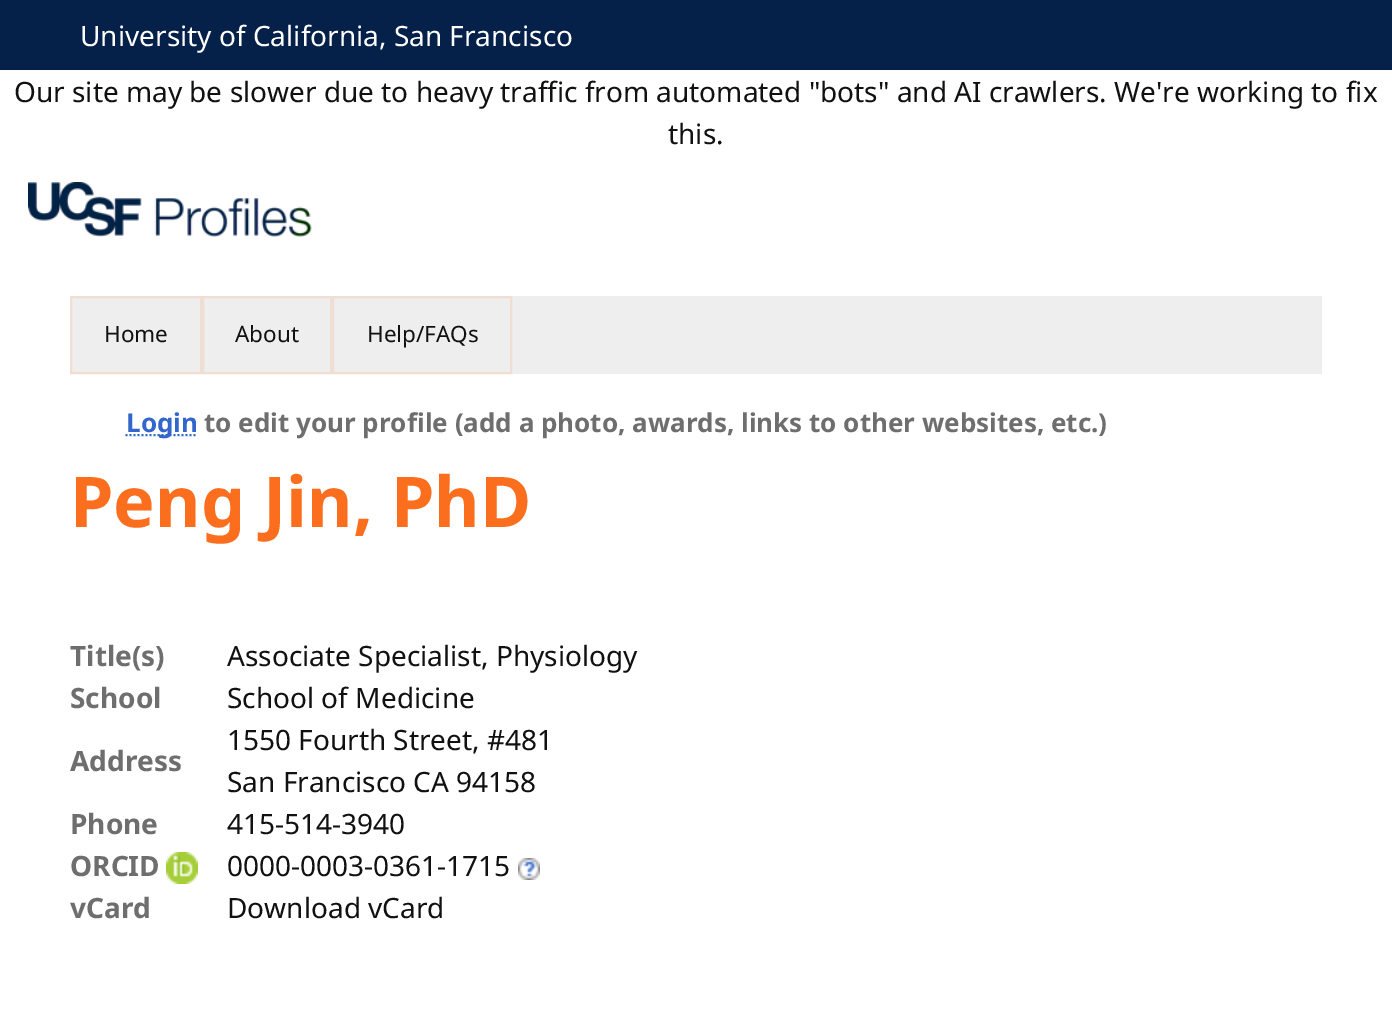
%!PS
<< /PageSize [1392 1027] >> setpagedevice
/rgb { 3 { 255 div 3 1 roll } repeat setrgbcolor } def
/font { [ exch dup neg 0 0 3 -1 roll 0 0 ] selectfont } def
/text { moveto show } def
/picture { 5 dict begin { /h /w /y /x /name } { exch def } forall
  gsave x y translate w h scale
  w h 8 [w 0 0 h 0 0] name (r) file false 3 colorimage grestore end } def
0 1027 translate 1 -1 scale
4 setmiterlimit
255 255 255 rgb
0 0 1392 1027 rectfill
5 32 73 rgb
0 0 1392 70 rectfill
(img_01.rgb) 28 182 284 55 picture
238 238 238 rgb
72 296 1250 78 rectfill
239 222 209 rgb
2 setlinewidth
71 297 130 76 rectstroke
203 297 128 76 rectstroke
333 297 178 76 rectstroke
51 102 204 rgb
[2 2] 0 setdash
125.5 435 moveto 72 0 rlineto stroke
(img_02.rgb) 166 852 32 32 picture
(img_03.rgb) 518 858 22 22 picture
/NotoSans-Regular 28 font
255 255 255 rgb
(University of California, San Francisco) 80 46 text
17 17 17 rgb
(Our site may be slower due to heavy traffic from automated "bots" and AI crawlers. We're working to fix) 14 102 text
(this.) 668 144 text
/NotoSans-Regular 22.5 font
(Home) 104 342 text
(About) 235 342 text
(Help/FAQs) 367 342 text
/NotoSans-Bold 26 font
51 102 204 rgb
(Login) 126 432 text
110 110 110 rgb
(to edit your profile \(add a photo, awards, links to other websites, etc.\)) 204 432 text
/NotoSans-Bold 70 font
250 110 30 rgb
(Peng Jin, PhD) 70 527 text
/NotoSans-Bold 28 font
110 110 110 rgb
(Title\(s\)) 70 666 text
/NotoSans-Regular 28 font
17 17 17 rgb
(Associate Specialist, Physiology) 227 666 text
/NotoSans-Bold 28 font
110 110 110 rgb
(School) 70 708 text
/NotoSans-Regular 28 font
17 17 17 rgb
(School of Medicine) 227 708 text
/NotoSans-Bold 28 font
110 110 110 rgb
(Address) 70 771 text
/NotoSans-Regular 28 font
17 17 17 rgb
(1550 Fourth Street, #481) 227 750 text
(San Francisco CA 94158) 227 792 text
/NotoSans-Bold 28 font
110 110 110 rgb
(Phone) 70 834 text
/NotoSans-Regular 28 font
17 17 17 rgb
(415-514-3940) 227 834 text
/NotoSans-Bold 28 font
110 110 110 rgb
(ORCID) 70 876 text
/NotoSans-Regular 28 font
17 17 17 rgb
(0000-0003-0361-1715) 227 876 text
/NotoSans-Bold 28 font
110 110 110 rgb
(vCard) 70 918 text
/NotoSans-Regular 28 font
17 17 17 rgb
(Download vCard) 227 918 text
showpage
